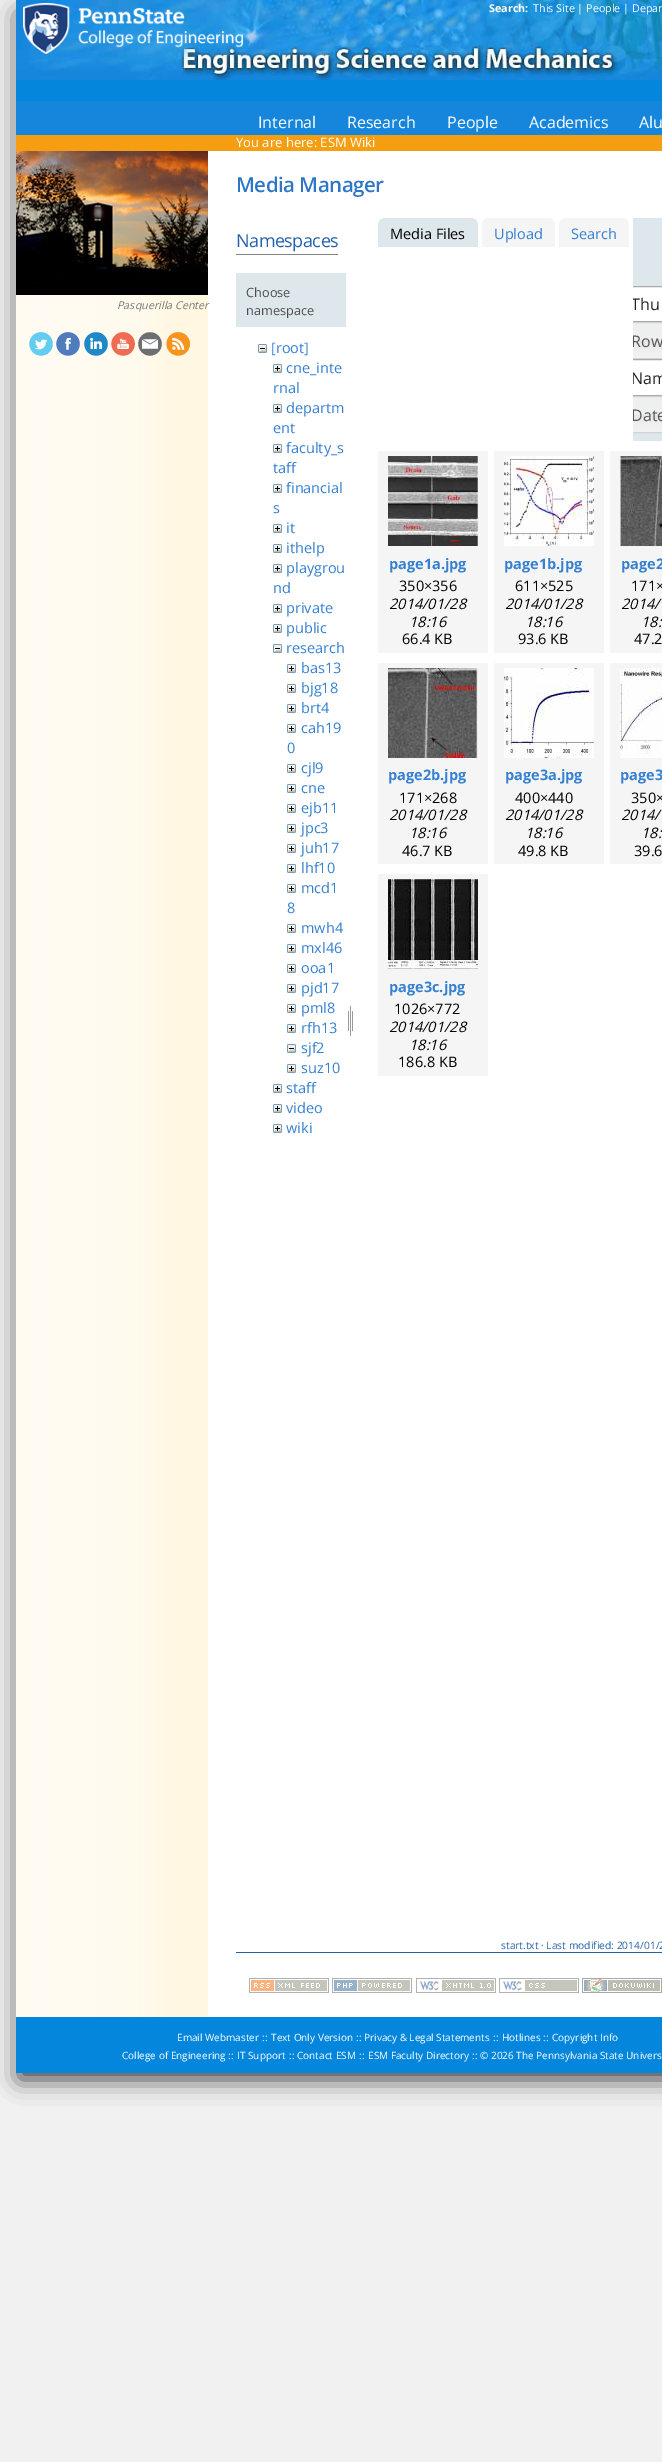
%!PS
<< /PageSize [662 2462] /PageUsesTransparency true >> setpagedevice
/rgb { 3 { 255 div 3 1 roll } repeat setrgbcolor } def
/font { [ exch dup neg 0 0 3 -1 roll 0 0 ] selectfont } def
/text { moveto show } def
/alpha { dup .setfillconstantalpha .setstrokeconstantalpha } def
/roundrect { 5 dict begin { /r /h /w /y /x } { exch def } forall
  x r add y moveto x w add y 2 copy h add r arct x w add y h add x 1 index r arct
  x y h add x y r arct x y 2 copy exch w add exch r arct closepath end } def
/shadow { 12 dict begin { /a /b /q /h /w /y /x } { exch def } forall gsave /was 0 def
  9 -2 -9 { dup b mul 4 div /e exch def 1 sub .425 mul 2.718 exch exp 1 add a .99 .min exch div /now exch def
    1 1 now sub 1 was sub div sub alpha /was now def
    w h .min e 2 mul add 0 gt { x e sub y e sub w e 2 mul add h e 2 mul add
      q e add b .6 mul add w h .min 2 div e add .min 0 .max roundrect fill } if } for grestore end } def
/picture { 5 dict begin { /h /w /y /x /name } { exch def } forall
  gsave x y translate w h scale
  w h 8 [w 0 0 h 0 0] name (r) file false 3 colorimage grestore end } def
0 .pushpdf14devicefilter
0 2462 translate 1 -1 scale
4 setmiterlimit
241 241 241 rgb
0 0 662 2462 rectfill
0 0 0 rgb
19 14 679 2065 0 12 0.75 shadow
255 255 255 rgb
208 151 454 1866 rectfill
4 134 221 rgb
16 80 646 21 rectfill
(img_01.rgb) 16 0 646 80 picture
(img_02.rgb) 23 3 220 51 picture
22 134 220 rgb
16 101 646 34 rectfill
246 158 18 rgb
16 135 646 16 rectfill
(img_03.rgb) 16 295 192 1722 picture
(img_04.rgb) 16 151 192 144 picture
(img_05.rgb) 29 332 24 24 picture
(img_06.rgb) 56 332 24 24 picture
(img_07.rgb) 84 332 24 24 picture
(img_08.rgb) 111 332 24 24 picture
(img_09.rgb) 138 332 24 24 picture
(img_10.rgb) 166 332 24 24 picture
128 128 128 rgb
236 254 102 1 rectfill
222 231 236 rgb
236 273 110 54 rectfill
(img_11.rgb) 258 344 9 9 picture
(img_12.rgb) 273 364 9 9 picture
(img_12.rgb) 273 404 9 9 picture
(img_12.rgb) 273 444 9 9 picture
(img_12.rgb) 273 484 9 9 picture
(img_12.rgb) 273 524 9 9 picture
(img_12.rgb) 273 544 9 9 picture
(img_12.rgb) 273 564 9 9 picture
(img_12.rgb) 273 604 9 9 picture
(img_12.rgb) 273 624 9 9 picture
(img_11.rgb) 273 644 9 9 picture
(img_12.rgb) 287 664 9 9 picture
(img_12.rgb) 287 684 9 9 picture
(img_12.rgb) 287 704 9 9 picture
(img_12.rgb) 287 724 9 9 picture
(img_12.rgb) 287 764 9 9 picture
(img_12.rgb) 287 784 9 9 picture
(img_12.rgb) 287 804 9 9 picture
(img_12.rgb) 287 824 9 9 picture
(img_12.rgb) 287 844 9 9 picture
(img_12.rgb) 287 864 9 9 picture
(img_12.rgb) 287 884 9 9 picture
(img_12.rgb) 287 924 9 9 picture
(img_12.rgb) 287 944 9 9 picture
(img_12.rgb) 287 964 9 9 picture
(img_12.rgb) 287 984 9 9 picture
(img_12.rgb) 287 1004 9 9 picture
(img_12.rgb) 287 1024 9 9 picture
(img_11.rgb) 287 1044 9 9 picture
(img_12.rgb) 287 1064 9 9 picture
(img_12.rgb) 273 1084 9 9 picture
(img_12.rgb) 273 1104 9 9 picture
(img_12.rgb) 273 1124 9 9 picture
(img_13.rgb) 348 1005 5 31 picture
385 218 moveto 86 0 rlineto 4 0 7 3 7 7 rcurveto 0 22 rlineto -100 0 rlineto 0 -22 rlineto 0 -4 3 -7 7 -7 rcurveto closepath fill
245 245 245 rgb
489 218 moveto 59 0 rlineto 4 0 7 3 7 7 rcurveto 0 22 rlineto -73 0 rlineto 0 -22 rlineto 0 -4 3 -7 7 -7 rcurveto closepath fill
566 218 moveto 56 0 rlineto 4 0 7 3 7 7 rcurveto 0 22 rlineto -70 0 rlineto 0 -22 rlineto 0 -4 3 -7 7 -7 rcurveto closepath fill
222 231 236 rgb
633 218 29 223 rectfill
255 255 255 rgb
633 287 29 34 rectfill
gsave
633 218 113 223 rectclip
170 170 170 rgb
618 286.5 moveto 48.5 0 rlineto 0 35 rlineto -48.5 0 rlineto -2 0 -3.5 -1.5 -3.5 -3.5 rcurveto 0 -28 rlineto 0 -2 1.5 -3.5 3.5 -3.5 rcurveto closepath stroke
grestore
(img_14.rgb) 633 323 29 35 picture
gsave
633 218 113 223 rectclip
211 211 211 rgb
614.5 322.5 moveto 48.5 0 rlineto 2 0 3.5 1.5 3.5 3.5 rcurveto 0 29 rlineto 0 2 -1.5 3.5 -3.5 3.5 rcurveto -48.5 0 rlineto closepath stroke
grestore
633 360 29 35 rectfill
gsave
633 218 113 223 rectclip
170 170 170 rgb
618 359.5 moveto 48.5 0 rlineto 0 36 rlineto -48.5 0 rlineto -2 0 -3.5 -1.5 -3.5 -3.5 rcurveto 0 -29 rlineto 0 -2 1.5 -3.5 3.5 -3.5 rcurveto closepath stroke
grestore
(img_14.rgb) 633 397 29 35 picture
gsave
633 218 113 223 rectclip
211 211 211 rgb
614.5 396.5 moveto 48.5 0 rlineto 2 0 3.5 1.5 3.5 3.5 rcurveto 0 29 rlineto 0 2 -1.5 3.5 -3.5 3.5 rcurveto -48.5 0 rlineto closepath stroke
grestore
245 245 245 rgb
378 451 110 202 rectfill
(img_15.rgb) 388 456 90 90 picture
494 451 110 202 rectfill
(img_16.rgb) 504 456 90 90 picture
610 451 52 202 rectfill
(img_17.rgb) 620 456 42 90 picture
378 663 110 201 rectfill
(img_18.rgb) 388 668 90 90 picture
494 663 110 201 rectfill
(img_19.rgb) 504 668 90 90 picture
610 663 52 201 rectfill
(img_20.rgb) 620 668 42 90 picture
378 874 110 202 rectfill
(img_21.rgb) 388 879 90 90 picture
36 97 170 rgb
236 1952 426 1 rectfill
(img_22.rgb) 249 1978 80 15 picture
(img_23.rgb) 332 1978 80 15 picture
(img_24.rgb) 416 1978 80 15 picture
(img_25.rgb) 499 1978 80 15 picture
(img_26.rgb) 582 1978 80 15 picture
4 134 221 rgb
16 2017 646 56 rectfill
/OpenSans-Bold 10.75 font
255 255 255 rgb
(Search:) 489 12 text
/OpenSans-Regular 10.75 font
(This Site | People | Depar) 533 12 text
/OpenSans-Regular 16 font
(Internal) 258 128 text
(Research) 347 128 text
(People) 447 128 text
(Academics) 529 128 text
(Alu) 639 128 text
/OpenSans-Regular 13 font
(You are here: ESM Wiki) 236 147 text
/OpenSans-Italic 10.75 font
119 119 119 rgb
(Pasquerilla Center) 117 309 text
/OpenSans-SemiBold 20.5 font
44 118 199 rgb
236 192 moveto -0.5 0 (Media Manager) ashow
/OpenSans-Regular 18 font
36 97 170 rgb
236 247 moveto -0.5 0 (Namespaces) ashow
/OpenSans-Regular 12.75 font
76 76 76 rgb
(Choose) 246 297 text
(namespace) 246 315 text
/OpenSans-Regular 14.5 font
53 128 209 rgb
([root]) 271 353 text
(cne_inte) 286 373 text
(rnal) 273 393 text
(departm) 286 413 text
(ent) 273 433 text
(faculty_s) 286 453 text
(taff) 273 473 text
(financial) 286 493 text
(s) 273 513 text
(it) 286 533 text
(ithelp) 286 553 text
(playgrou) 286 573 text
(nd) 273 593 text
(private) 286 613 text
(public) 286 633 text
(research) 286 653 text
(bas13) 301 673 text
(bjg18) 301 693 text
(brt4) 301 713 text
(cah19) 301 733 text
(0) 287 753 text
(cjl9) 301 773 text
(cne) 301 793 text
(ejb11) 301 813 text
(jpc3) 301 833 text
(juh17) 301 853 text
(lhf10) 301 873 text
(mcd1) 301 893 text
(8) 287 913 text
(mwh4) 301 933 text
(mxl46) 301 953 text
(ooa1) 301 973 text
(pjd17) 301 993 text
(pml8) 301 1013 text
(rfh13) 301 1033 text
(sjf2) 301 1053 text
(suz10) 301 1073 text
(staff) 286 1093 text
(video) 286 1113 text
(wiki) 286 1133 text
0 0 0 rgb
(Media Files) 390 239 text
53 128 209 rgb
(Upload) 494 239 text
(Search) 571 239 text
gsave
633 218 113 223 rectclip
/OpenSans-Regular 16 font
33 33 33 rgb
(Thu) 631 310 text
85 85 85 rgb
(Row) 631 347 text
33 33 33 rgb
(Nam) 631 384 text
85 85 85 rgb
(Date) 631 421 text
grestore
/OpenSans-Bold 14.5 font
(page1a.jpg) 389 569 text
/OpenSans-Regular 14.5 font
0 0 0 rgb
(350×356) 399 591 text
/OpenSans-Italic 14.5 font
(2014/01/28) 389 609 text
(18:16) 409 627 text
/OpenSans-Regular 14.5 font
(66.4 KB) 402 644 text
/OpenSans-Bold 14.5 font
53 128 209 rgb
(page1b.jpg) 504 569 text
/OpenSans-Regular 14.5 font
0 0 0 rgb
(611×525) 515 591 text
/OpenSans-Italic 14.5 font
(2014/01/28) 505 609 text
(18:16) 525 627 text
/OpenSans-Regular 14.5 font
(93.6 KB) 518 644 text
/OpenSans-Bold 14.5 font
53 128 209 rgb
(page2) 621 569 text
/OpenSans-Regular 14.5 font
0 0 0 rgb
(171×) 631 591 text
/OpenSans-Italic 14.5 font
(2014/) 621 609 text
(18:) 641 627 text
/OpenSans-Regular 14.5 font
(47.2) 634 644 text
/OpenSans-Bold 14.5 font
53 128 209 rgb
(page2b.jpg) 388 780 text
/OpenSans-Regular 14.5 font
0 0 0 rgb
(171×268) 399 803 text
/OpenSans-Italic 14.5 font
(2014/01/28) 389 820 text
(18:16) 409 838 text
/OpenSans-Regular 14.5 font
(46.7 KB) 402 856 text
/OpenSans-Bold 14.5 font
53 128 209 rgb
(page3a.jpg) 505 780 text
/OpenSans-Regular 14.5 font
0 0 0 rgb
(400×440) 515 803 text
/OpenSans-Italic 14.5 font
(2014/01/28) 505 820 text
(18:16) 525 838 text
/OpenSans-Regular 14.5 font
(49.8 KB) 518 856 text
/OpenSans-Bold 14.5 font
53 128 209 rgb
(page3) 620 780 text
/OpenSans-Regular 14.5 font
0 0 0 rgb
(350×) 631 803 text
/OpenSans-Italic 14.5 font
(2014/) 621 820 text
(18:) 641 838 text
/OpenSans-Regular 14.5 font
(39.6) 634 856 text
/OpenSans-Bold 14.5 font
53 128 209 rgb
(page3c.jpg) 389 992 text
/OpenSans-Regular 14.5 font
0 0 0 rgb
(1026×772) 394 1014 text
/OpenSans-Italic 14.5 font
(2014/01/28) 389 1032 text
(18:16) 409 1050 text
/OpenSans-Regular 14.5 font
(186.8 KB) 398 1067 text
/OpenSans-Regular 10.25 font
36 97 170 rgb
(start.txt · Last modified: 2014/01/2) 501 1949 text
/OpenSans-Regular 10 font
255 255 255 rgb
(Email Webmaster) 177 2041 text
(::) 262 2041 text
(Text Only Version) 271 2041 text
(::) 356 2041 text
(Privacy & Legal Statements) 364 2041 text
(::) 493 2041 text
(Hotlines) 502 2041 text
(::) 543 2041 text
(Copyright Info) 552 2041 text
(College of Engineering ::) 122 2059 text
(IT Support) 237 2059 text
(::) 289 2059 text
(Contact ESM) 297 2059 text
(::) 359 2059 text
(ESM Faculty Directory) 368 2059 text
(::) 472 2059 text
(© 2026 The Pennsylvania State Univers) 480 2059 text
.poppdf14devicefilter showpage
